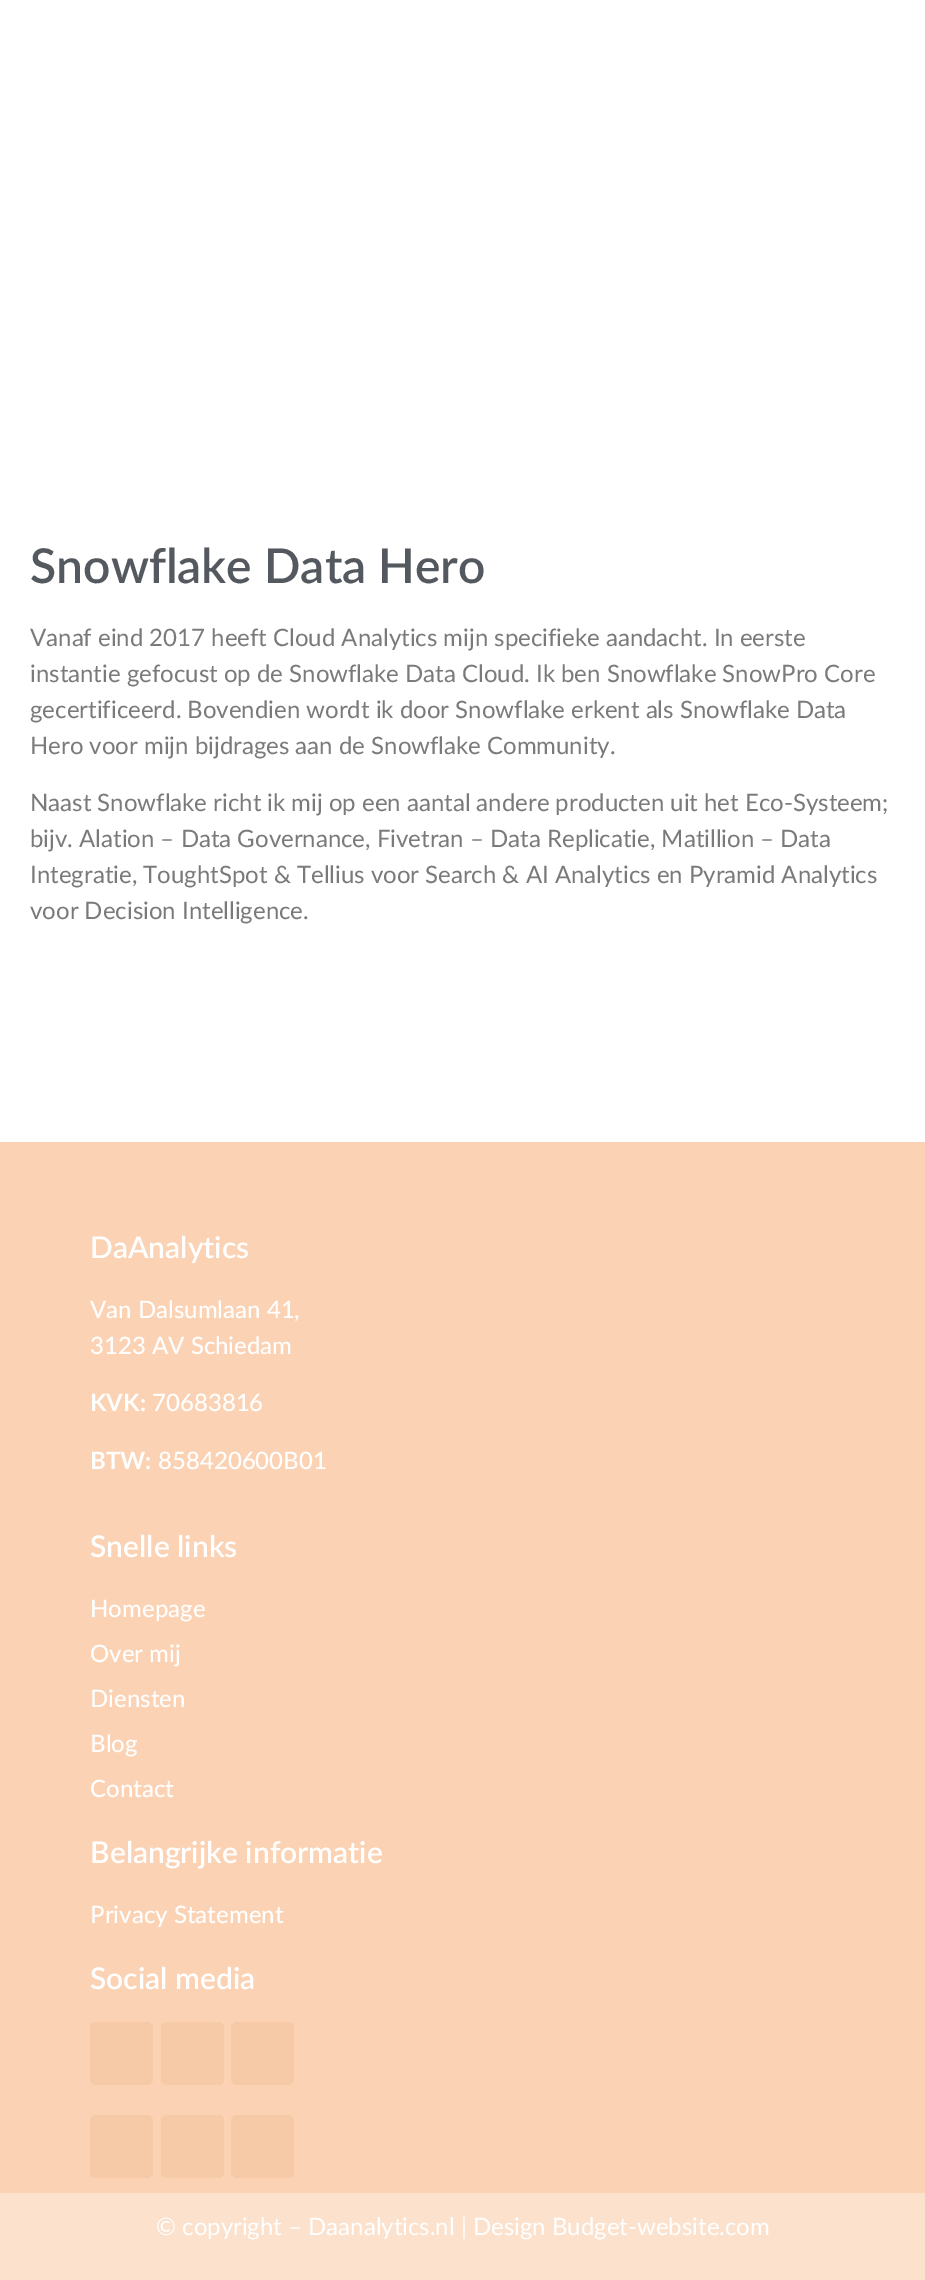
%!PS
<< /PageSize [925 2280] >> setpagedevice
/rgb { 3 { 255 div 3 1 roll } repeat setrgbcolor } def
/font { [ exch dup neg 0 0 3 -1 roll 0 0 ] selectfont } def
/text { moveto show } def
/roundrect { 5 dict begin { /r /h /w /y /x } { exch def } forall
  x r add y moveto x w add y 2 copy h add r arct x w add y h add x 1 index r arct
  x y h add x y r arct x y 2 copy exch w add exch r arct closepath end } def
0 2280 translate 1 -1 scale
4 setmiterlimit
255 255 255 rgb
0 0 925 2280 rectfill
251 211 180 rgb
0 1142 925 1051 rectfill
246 201 167 rgb
90 2022 63 63 6 roundrect fill
161 2022 63 63 6 roundrect fill
231 2022 63 63 6 roundrect fill
90 2115 63 63 6 roundrect fill
161 2115 63 63 6 roundrect fill
231 2115 63 63 6 roundrect fill
252 226 205 rgb
0 2193 925 87 rectfill
/Lato-SemiBold 48 font
84 89 95 rgb
(Snowflake Data Hero) 30 583 text
/Lato-Regular 24 font
122 122 122 rgb
(Vanaf eind 2017 heeft Cloud Analytics mijn specifieke aandacht. In eerste) 30 646 text
(instantie gefocust op de Snowflake Data Cloud. Ik ben Snowflake SnowPro Core) 30 682 text
(gecertificeerd. Bovendien wordt ik door Snowflake erkent als Snowflake Data) 30 718 text
(Hero voor mijn bijdrages aan de Snowflake Community.) 30 754 text
(Naast Snowflake richt ik mij op een aantal andere producten uit het Eco-Systeem;) 30 811 text
(bijv. Alation – Data Governance, Fivetran – Data Replicatie, Matillion – Data) 30 847 text
(Integratie, ToughtSpot & Tellius voor Search & AI Analytics en Pyramid Analytics) 30 883 text
(voor Decision Intelligence.) 30 919 text
/Lato-SemiBold 30 font
255 255 255 rgb
(DaAnalytics) 90 1258 text
/Lato-Medium 24 font
(Van Dalsumlaan 41,) 90 1318 text
(3123 AV Schiedam) 90 1354 text
/Lato-Bold 24 font
(KVK:) 90 1411 text
/Lato-Medium 24 font
(70683816) 152 1411 text
/Lato-Bold 24 font
(BTW:) 90 1469 text
/Lato-Medium 24 font
(858420600B01) 158 1469 text
/Lato-SemiBold 30 font
(Snelle links) 90 1557 text
/Lato-Medium 24 font
(Homepage) 90 1617 text
(Over mij) 90 1662 text
(Diensten) 90 1707 text
(Blog) 90 1752 text
(Contact) 90 1797 text
/Lato-SemiBold 30 font
(Belangrijke informatie) 90 1863 text
/Lato-Medium 24 font
(Privacy Statement) 90 1923 text
/Lato-SemiBold 30 font
(Social media) 90 1989 text
/Lato-Regular 24 font
(© copyright – Daanalytics.nl | Design Budget-website.com) 156 2235 text
showpage
